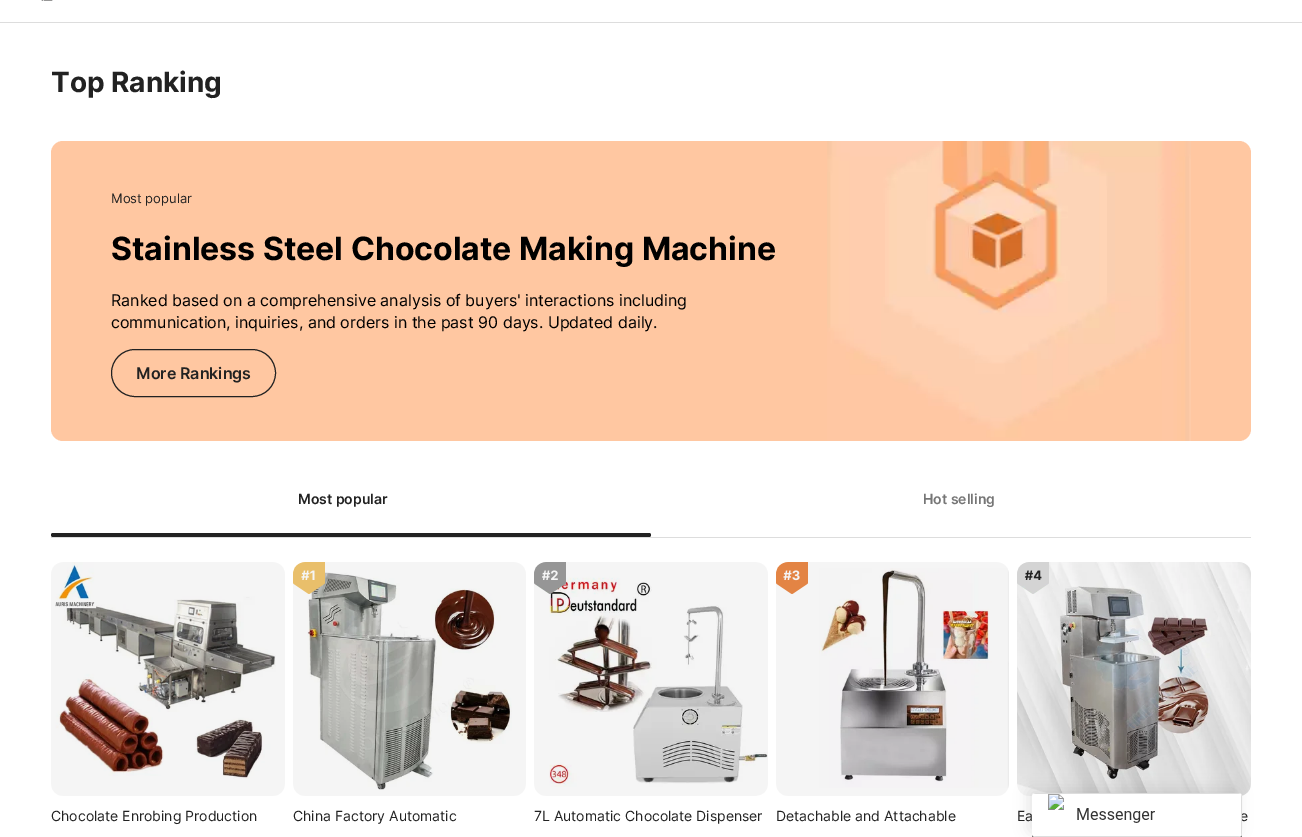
%!PS
<< /PageSize [1302 837] /PageUsesTransparency true >> setpagedevice
/rgb { 3 { 255 div 3 1 roll } repeat setrgbcolor } def
/font { [ exch dup neg 0 0 3 -1 roll 0 0 ] selectfont } def
/text { moveto show } def
/alpha { dup .setfillconstantalpha .setstrokeconstantalpha } def
/roundrect { 5 dict begin { /r /h /w /y /x } { exch def } forall
  x r add y moveto x w add y 2 copy h add r arct x w add y h add x 1 index r arct
  x y h add x y r arct x y 2 copy exch w add exch r arct closepath end } def
/shadow { 12 dict begin { /a /b /q /h /w /y /x } { exch def } forall gsave /was 0 def
  9 -2 -9 { dup b mul 4 div /e exch def 1 sub .425 mul 2.718 exch exp 1 add a .99 .min exch div /now exch def
    1 1 now sub 1 was sub div sub alpha /was now def
    w h .min e 2 mul add 0 gt { x e sub y e sub w e 2 mul add h e 2 mul add
      q e add b .6 mul add w h .min 2 div e add .min 0 .max roundrect fill } if } for grestore end } def
/picture { 5 dict begin { /h /w /y /x /name } { exch def } forall
  gsave x y translate w h scale
  w h 8 [w 0 0 h 0 0] name (r) file false 3 colorimage grestore end } def
0 .pushpdf14devicefilter
0 837 translate 1 -1 scale
4 setmiterlimit
255 255 255 rgb
0 0 1302 837 rectfill
221 221 221 rgb
0 22 1302 1 rectfill
(img_01.rgb) 41 0 12 1 picture
255 199 161 rgb
51 141 1200 300 12 roundrect fill
34 34 34 rgb
111.5 349.5 164 47 23.5 roundrect stroke
(img_02.rgb) 827 141 364 300 picture
221 221 221 rgb
51 537 1200 1 rectfill
34 34 34 rgb
51 533 600 4 2 roundrect fill
(img_04.rgb) 55 562 221 217 picture
(img_03.rgb) 51 562 234 234 picture
(img_07.rgb) 307 570 205 220 picture
(img_06.rgb) 293 562 32 32 picture
(img_10.rgb) 549 572 219 215 picture
(img_09.rgb) 534 562 32 32 picture
(img_12.rgb) 776 562 32 32 picture
(img_13.rgb) 819 568 190 220 picture
(img_14.rgb) 1017 562 234 234 picture
(img_16.rgb) 1017 562 32 32 picture
/Inter-Bold 28 font
(Top Ranking) 51 92 text
/Inter-Regular 13 font
(Most popular) 111 203 text
/Inter-Bold 32 font
0 0 0 rgb
(Stainless Steel Chocolate Making Machine) 111 260 text
/Inter-Regular 16 font
(Ranked based on a comprehensive analysis of buyers' interactions including) 111 306 text
(communication, inquiries, and orders in the past 90 days. Updated daily.) 111 328 text
/Inter-SemiBold 16 font
34 34 34 rgb
(More Rankings) 136 379 text
/Inter-SemiBold 14 font
(Most popular) 298 504 text
118 118 118 rgb
(Hot selling) 923 504 text
/Inter-Regular 14 font
34 34 34 rgb
(Chocolate Enrobing Production) 51 821 text
/Inter-Bold 13 font
255 255 255 rgb
(#1) 301 580 text
(img_05.rgb) 293 562 233 234 picture
/Inter-Regular 14 font
34 34 34 rgb
(China Factory Automatic) 293 821 text
/Inter-Bold 13 font
255 255 255 rgb
(#2) 542 580 text
(img_08.rgb) 534 562 234 234 picture
/Inter-Regular 14 font
34 34 34 rgb
(7L Automatic Chocolate Dispenser) 534 821 text
/Inter-Bold 13 font
255 255 255 rgb
(#3) 783 580 text
(img_11.rgb) 776 562 233 234 picture
/Inter-Regular 14 font
34 34 34 rgb
(Detachable and Attachable) 776 821 text
/Inter-Bold 13 font
(#4) 1025 580 text
(img_15.rgb) 1017 562 234 234 picture
/Inter-Regular 14 font
(Ea) 1017 821 text
(e) 1240 821 text
0 0 0 rgb
1028 789 210 44 4 7 0.1 shadow
(img_17.rgb) 1032 793 210 44 picture
.poppdf14devicefilter showpage
